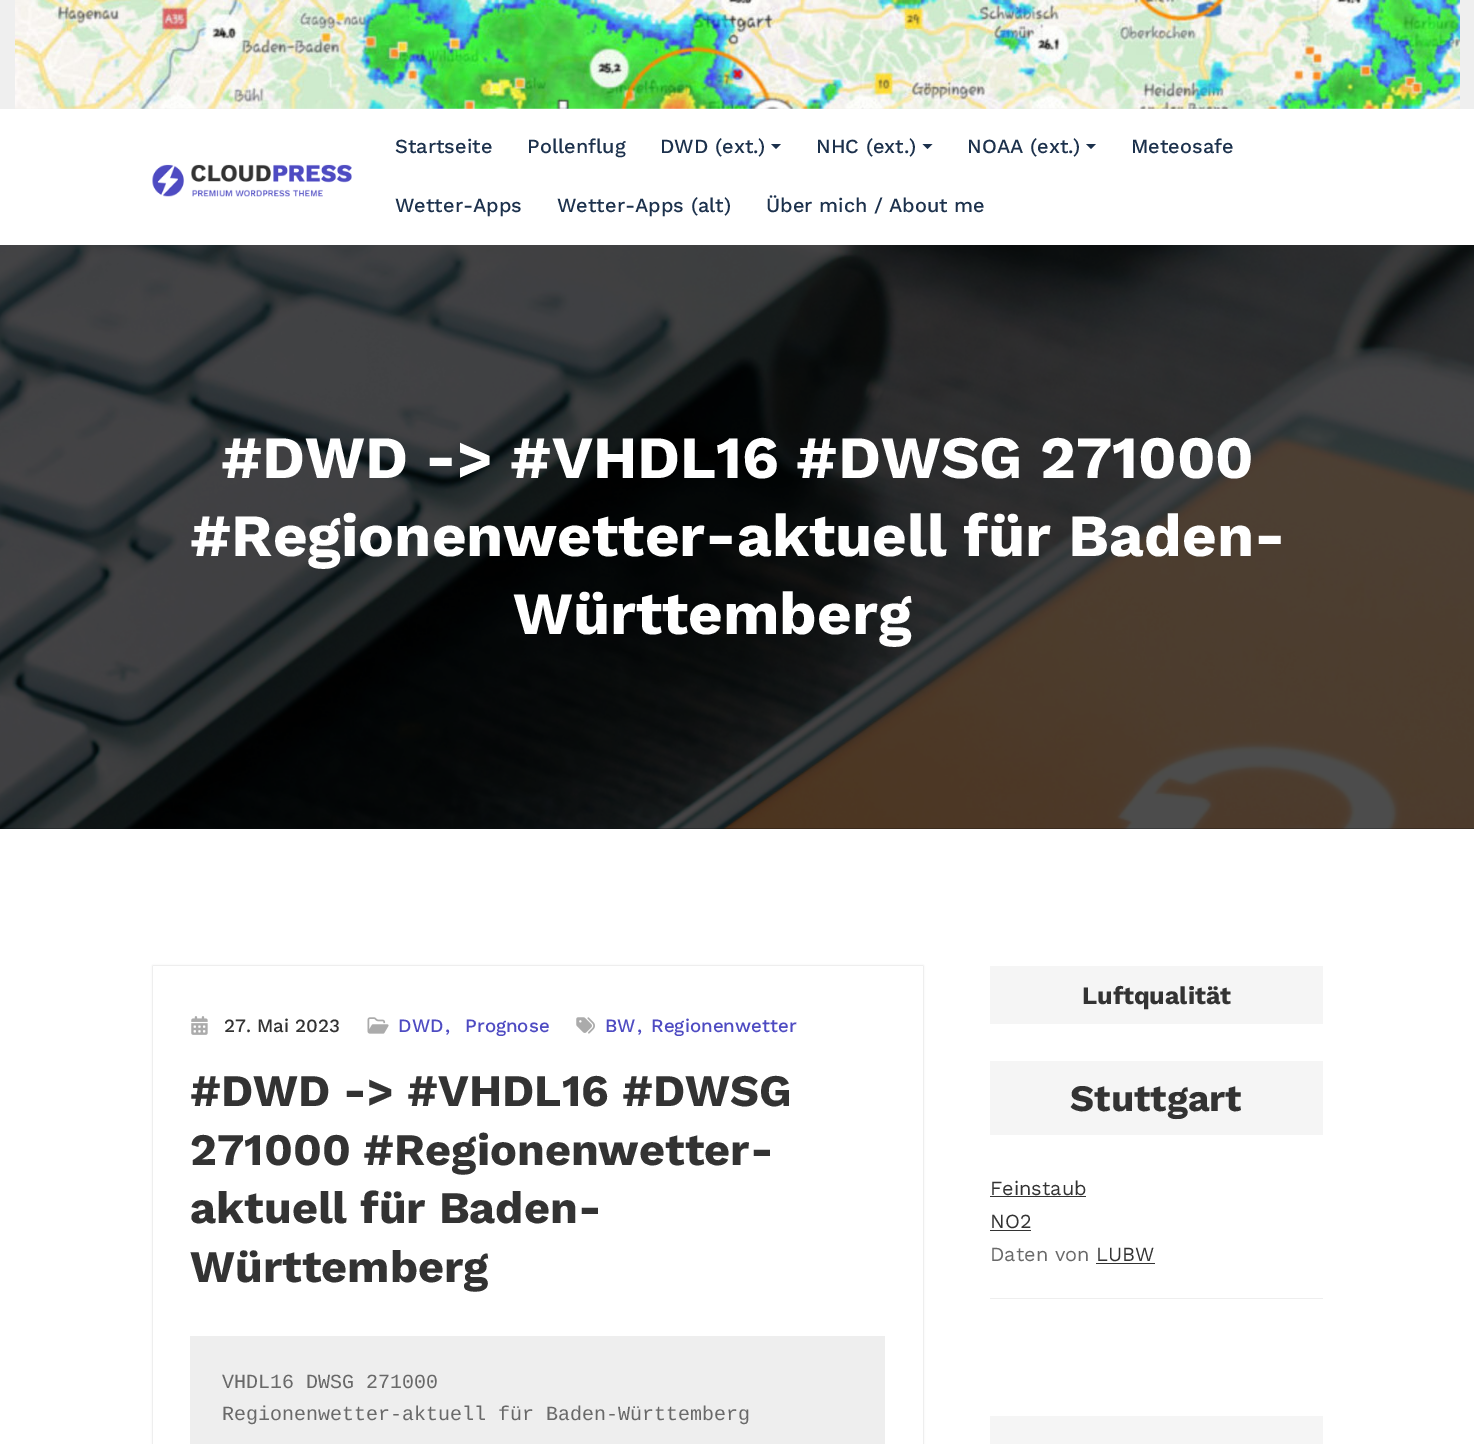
%!PS
<< /PageSize [1474 1444] /PageUsesTransparency true >> setpagedevice
/rgb { 3 { 255 div 3 1 roll } repeat setrgbcolor } def
/font { [ exch dup neg 0 0 3 -1 roll 0 0 ] selectfont } def
/text { moveto show } def
/alpha { dup .setfillconstantalpha .setstrokeconstantalpha } def
/roundrect { 5 dict begin { /r /h /w /y /x } { exch def } forall
  x r add y moveto x w add y 2 copy h add r arct x w add y h add x 1 index r arct
  x y h add x y r arct x y 2 copy exch w add exch r arct closepath end } def
/shadow { 12 dict begin { /a /b /q /h /w /y /x } { exch def } forall gsave /was 0 def
  9 -2 -9 { dup b mul 4 div /e exch def 1 sub .425 mul 2.718 exch exp 1 add a .99 .min exch div /now exch def
    1 1 now sub 1 was sub div sub alpha /was now def
    w h .min e 2 mul add 0 gt { x e sub y e sub w e 2 mul add h e 2 mul add
      q e add b .6 mul add w h .min 2 div e add .min 0 .max roundrect fill } if } for grestore end } def
/picture { 5 dict begin { /h /w /y /x /name } { exch def } forall
  gsave x y translate w h scale
  w h 8 [w 0 0 h 0 0] name (r) file false 3 colorimage grestore end } def
0 .pushpdf14devicefilter
0 1444 translate 1 -1 scale
4 setmiterlimit
239 239 239 rgb
0 0 1474 1444 rectfill
(img_01.rgb) 15 0 1445 109 picture
255 255 255 rgb
0 109 1474 136 rectfill
(img_02.rgb) 152 164 200 33 picture
28 49 76 rgb
771 144 moveto 10 0 rlineto -5 5 rlineto closepath fill
922.5 144 moveto 10 0 rlineto -5 5 rlineto closepath fill
1086 144 moveto 10 0 rlineto -5 5 rlineto closepath fill
(img_03.rgb) 0 245 1474 584 picture
255 255 255 rgb
0 829 1474 615 rectfill
0 0 0 rgb
153 966 770 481 0 1 0.2 shadow
255 255 255 rgb
153 966 770 478 rectfill
(img_04.rgb) 191 1016 17 19 picture
(img_05.rgb) 367 1017 22 17 picture
(img_06.rgb) 576 1017 19 17 picture
238 238 238 rgb
190 1336 695 108 rectfill
245 245 245 rgb
990 966 333 58 rectfill
990 1061 333 74 rectfill
51 51 51 rgb
990 1196 96 1 rectfill
990 1230 41 1 rectfill
1096 1263 59 1 rectfill
238 238 238 rgb
990 1298 333 1 rectfill
245 245 245 rgb
990 1416 333 28 rectfill
/WorkSans-Medium 20 font
28 49 76 rgb
(Startseite) 395 153 text
(Pollenflug) 527 153 text
(DWD \(ext.\)) 660 153 text
(NHC \(ext.\)) 816 153 text
(NOAA \(ext.\)) 967 153 text
(Meteosafe) 1131 153 text
(Wetter-Apps) 395 212 text
(Wetter-Apps \(alt\)) 557 212 text
(Über mich / About me) 766 212 text
/WorkSans-Bold 60 font
255 255 255 rgb
(#DWD -> #VHDL16 #DWSG 271000) 221 478 text
(#Regionenwetter-aktuell für Baden-) 190 556 text
(Württemberg) 513 634 text
/WorkSans-Medium 18.75 font
51 51 51 rgb
(27. Mai 2023) 224 1032 text
78 75 194 rgb
(DWD) 398 1032 text
(,) 445 1032 text
(Prognose) 465 1032 text
(BW) 605 1032 text
(,) 637 1032 text
(Regionenwetter) 651 1032 text
/WorkSans-Bold 45 font
51 51 51 rgb
(#DWD -> #VHDL16 #DWSG) 190 1106 text
(271000 #Regionenwetter-) 190 1165 text
(aktuell für Baden-) 190 1223 text
(Württemberg) 190 1282 text
/LiberationMono-Regular 20 font
105 105 105 rgb
(VHDL16 DWSG 271000) 222 1388 text
(Regionenwetter-aktuell für Baden-Württemberg) 222 1420 text
/WorkSans-Bold 25 font
51 51 51 rgb
(Luftqualität) 1082 1004 text
/WorkSans-Bold 37.5 font
(Stuttgart) 1070 1111 text
/WorkSans-Regular 20 font
(Feinstaub) 990 1195 text
(NO2) 990 1228 text
105 105 105 rgb
(Daten von) 990 1261 text
51 51 51 rgb
(LUBW) 1096 1261 text
.poppdf14devicefilter showpage
